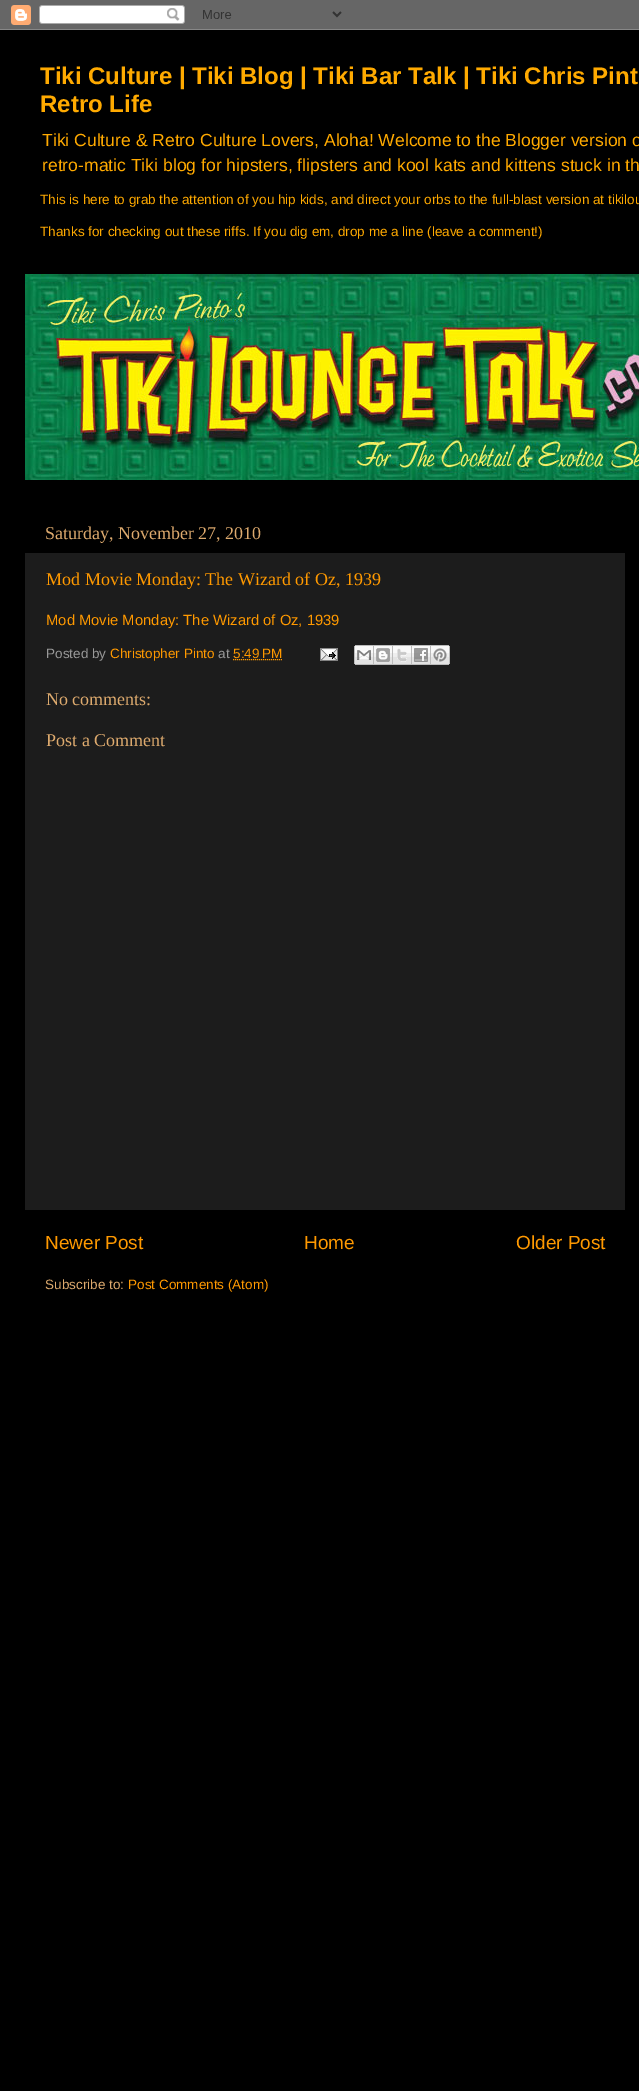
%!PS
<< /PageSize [639 2091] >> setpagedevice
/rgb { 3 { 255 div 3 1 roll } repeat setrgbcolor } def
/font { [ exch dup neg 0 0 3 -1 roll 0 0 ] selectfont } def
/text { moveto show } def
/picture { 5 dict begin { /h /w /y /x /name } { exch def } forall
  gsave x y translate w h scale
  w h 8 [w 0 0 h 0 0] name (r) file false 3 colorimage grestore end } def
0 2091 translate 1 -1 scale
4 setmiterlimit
0 0 0 rgb
0 0 639 2091 rectfill
(img_01.rgb) 0 0 639 30 picture
(img_02.rgb) 25 274 614 206 picture
28 28 28 rgb
25 553 600 657 rectfill
255 153 0 rgb
[1 1] 0 setdash
233 659.5 moveto 49 0 rlineto stroke
(img_03.rgb) 320 648 18 13 picture
(img_04.rgb) 354 645 20 20 picture
(img_05.rgb) 374 645 19 20 picture
(img_06.rgb) 393 645 19 20 picture
(img_07.rgb) 412 645 19 20 picture
(img_08.rgb) 431 645 19 20 picture
/LiberationSans-Bold 24 font
255 170 0 rgb
(Tiki Culture | Tiki Blog | Tiki Bar Talk | Tiki Chris Pint) 40 84 text
(Retro Life) 40 112 text
/LiberationSans-Regular 17.55 font
(Tiki Culture & Retro Culture Lovers, Aloha! Welcome to the Blogger version o) 42 146 text
(retro-matic Tiki blog for hipsters, flipsters and kool kats and kittens stuck in th) 42 171 text
/LiberationSans-Regular 13.5 font
(This is here to grab the attention of you hip kids, and direct your orbs to the full-blast version at tikilou) 40 204 text
(Thanks for checking out these riffs. If you dig em, drop me a line \(leave a comment!\)) 40 236 text
/LiberationSerif-Regular 18 font
221 170 110 rgb
(Saturday, November 27, 2010) 45 539 text
255 153 0 rgb
(Mod Movie Monday: The Wizard of Oz, 1939) 46 585 text
/LiberationSans-Regular 14.8 font
(Mod Movie Monday: The Wizard of Oz, 1939) 46 625 text
/LiberationSans-Regular 13.5 font
153 153 153 rgb
(Posted by) 46 658 text
255 153 0 rgb
(Christopher Pinto) 110 658 text
153 153 153 rgb
(at) 218 658 text
255 153 0 rgb
(5:49 PM) 233 658 text
/LiberationSerif-Regular 18 font
221 170 110 rgb
(No comments:) 46 705 text
(Post a Comment) 46 746 text
/LiberationSans-Regular 19 font
255 153 0 rgb
(Newer Post) 45 1249 text
(Home) 304 1249 text
(Older Post) 516 1249 text
/LiberationSans-Regular 13.5 font
221 170 110 rgb
(Subscribe to:) 45 1289 text
255 153 0 rgb
(Post Comments \(Atom\)) 128 1289 text
showpage
